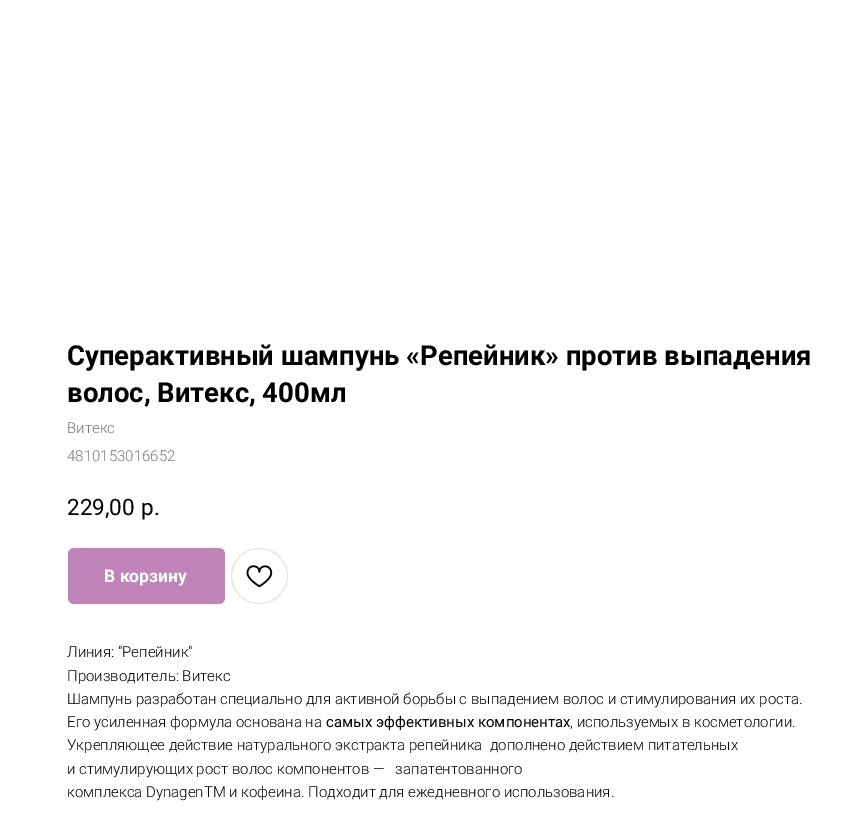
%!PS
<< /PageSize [858 817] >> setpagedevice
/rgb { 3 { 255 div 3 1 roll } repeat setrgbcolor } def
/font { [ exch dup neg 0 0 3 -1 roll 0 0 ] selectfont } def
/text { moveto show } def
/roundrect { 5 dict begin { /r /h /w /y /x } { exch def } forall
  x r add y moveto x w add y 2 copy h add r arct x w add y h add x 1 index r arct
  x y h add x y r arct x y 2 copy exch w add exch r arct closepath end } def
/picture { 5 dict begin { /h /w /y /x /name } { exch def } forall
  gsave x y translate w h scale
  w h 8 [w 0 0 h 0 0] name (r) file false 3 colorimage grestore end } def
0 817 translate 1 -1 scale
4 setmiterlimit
255 255 255 rgb
0 0 858 817 rectfill
192 132 187 rgb
68 548 157 56 6 roundrect fill
228 228 228 rgb
231.5 548.5 56 55 27.5 roundrect stroke
(img_01.rgb) 246 565 27 23 picture
/Roboto-Bold 27.5 font
0 0 0 rgb
(Суперактивный шампунь «Репейник» против выпадения) 67 365 text
(волос, Витекс, 400мл) 67 402 text
/Roboto-Light 15 font
119 119 119 rgb
(Витекс) 67 433 text
(4810153016652) 67 461 text
/Roboto-Regular 22.5 font
0 0 0 rgb
(229,00) 67 515 text
(р.) 141 515 text
/Roboto-Bold 17.5 font
255 255 255 rgb
(В корзину) 104 582 text
/Roboto-Light 15 font
0 0 0 rgb
(Линия: "Репейник") 67 657 text
(Производитель: Витекс) 67 681 text
(Шампунь разработан специально для активной борьбы с выпадением волос и стимулирования их роста.) 67 704 text
(Его усиленная формула основана на) 67 727 text
/Roboto-Regular 15 font
(самых эффективных компонентах) 326 727 text
/Roboto-Light 15 font
(, используемых в косметологии.) 570 727 text
(Укрепляющее действие натурального экстракта репейника  дополнено действием питательных) 67 750 text
(и стимулирующих рост волос компонентов —   запатентованного) 67 774 text
(комплекса DynagenТМ и кофеина. Подходит для ежедневного использования.) 67 797 text
showpage
